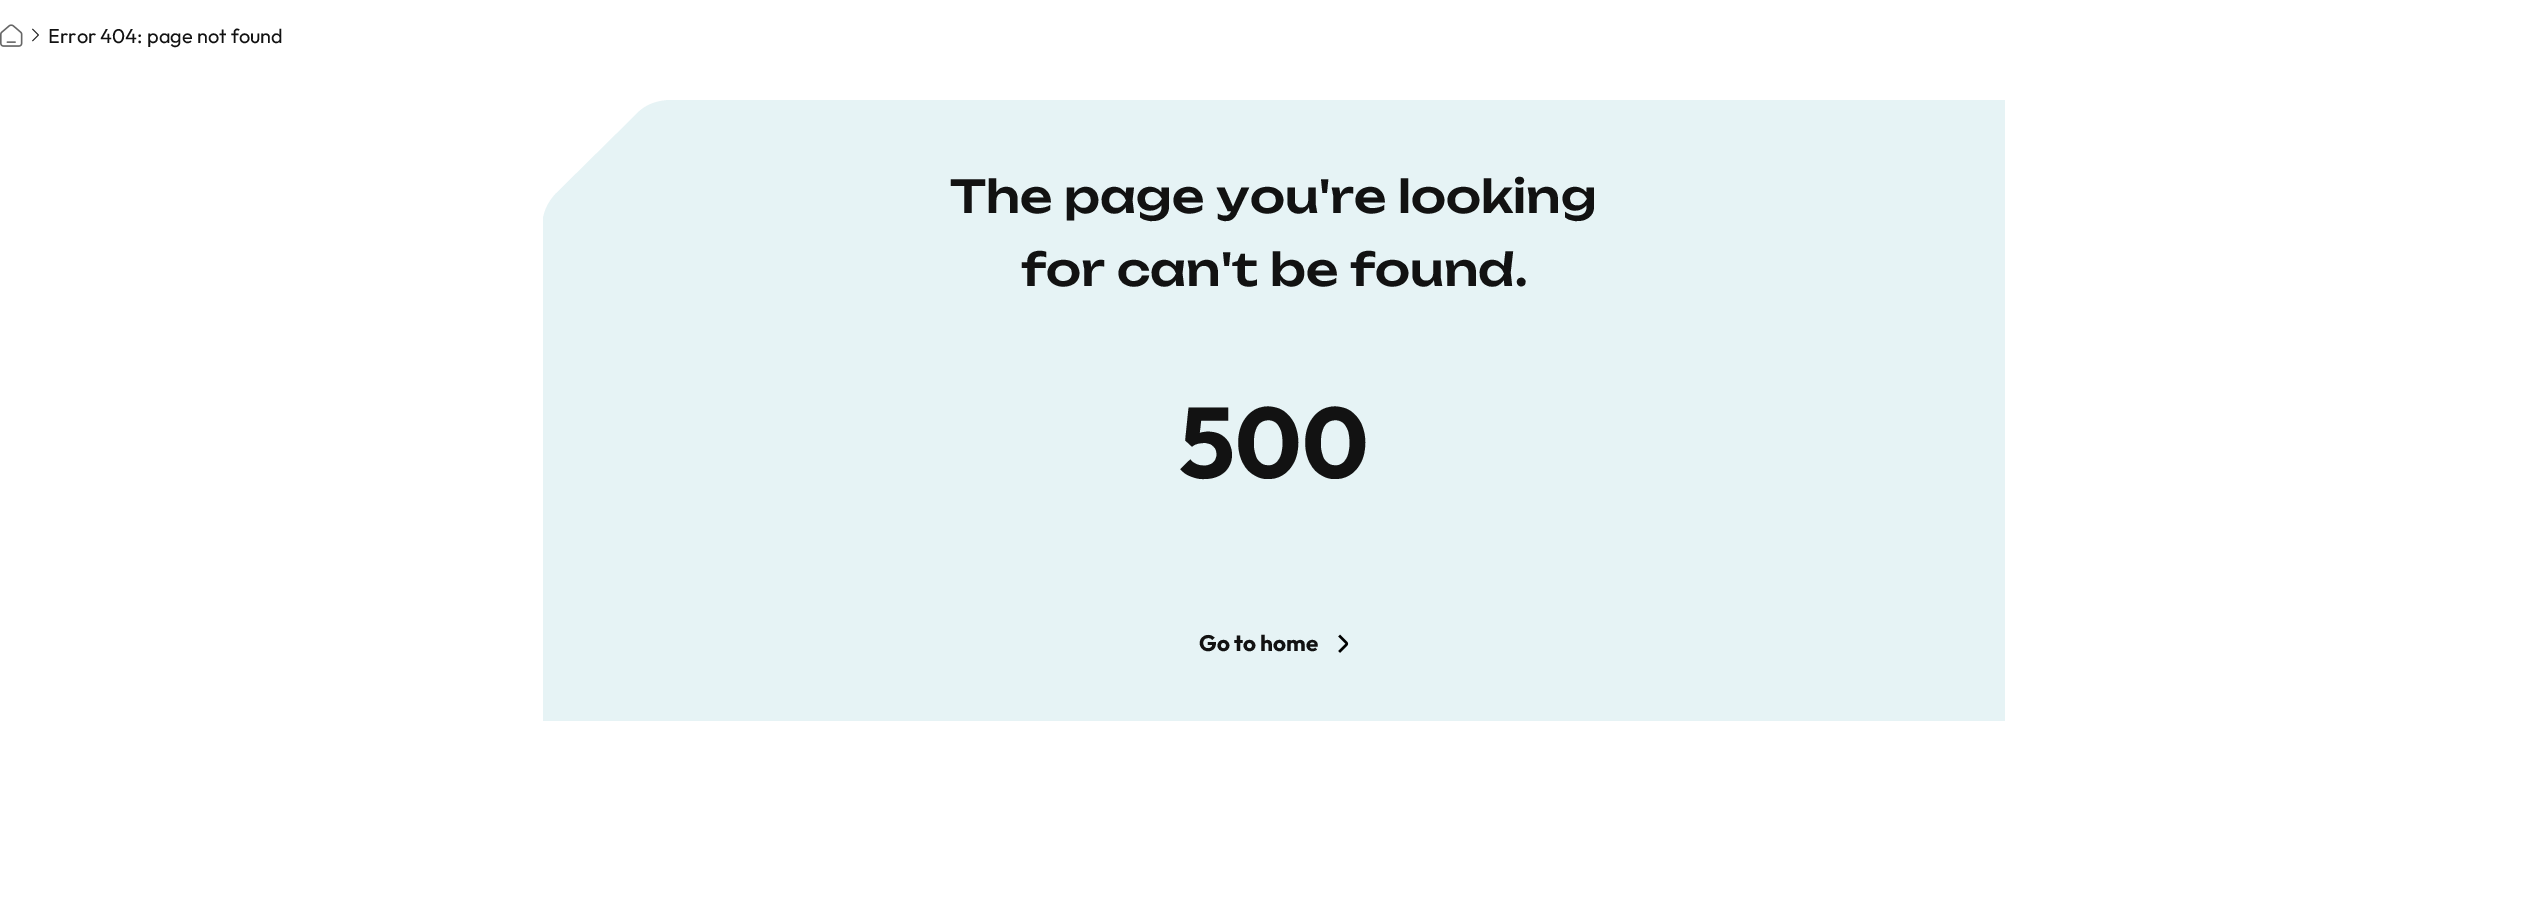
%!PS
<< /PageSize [2547 919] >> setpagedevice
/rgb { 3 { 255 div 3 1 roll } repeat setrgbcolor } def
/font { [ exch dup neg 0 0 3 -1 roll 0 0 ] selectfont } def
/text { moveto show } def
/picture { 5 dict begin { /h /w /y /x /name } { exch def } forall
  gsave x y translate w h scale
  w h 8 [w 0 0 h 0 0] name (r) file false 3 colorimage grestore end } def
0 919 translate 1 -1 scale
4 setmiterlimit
255 255 255 rgb
0 0 2547 919 rectfill
(img_01.rgb) 0 24 23 23 picture
(img_02.rgb) 32 28 7 14 picture
230 243 245 rgb
543 100 1462 621 rectfill
gsave
543 100 123 126 rectclip
255 255 255 rgb
636 114 moveto 8 -9 19 -13 30 -14 rcurveto -124 0 rlineto 0 126 rlineto 0 -12 5 -24 14 -33 rcurveto closepath fill
grestore
(img_03.rgb) 1338 634 11 19 picture
/Outfit-Regular 20 font
18 18 18 rgb
(Error 404: page not found) 48 43 text
/Unbounded-Medium 45 font
(The page you're looking) 950 213 text
(for can't be found.) 1021 286 text
/Outfit-Bold 100 font
(500) 1179 478 text
/Outfit-Bold 22.5 font
(Go to home) 1199 651 text
showpage
